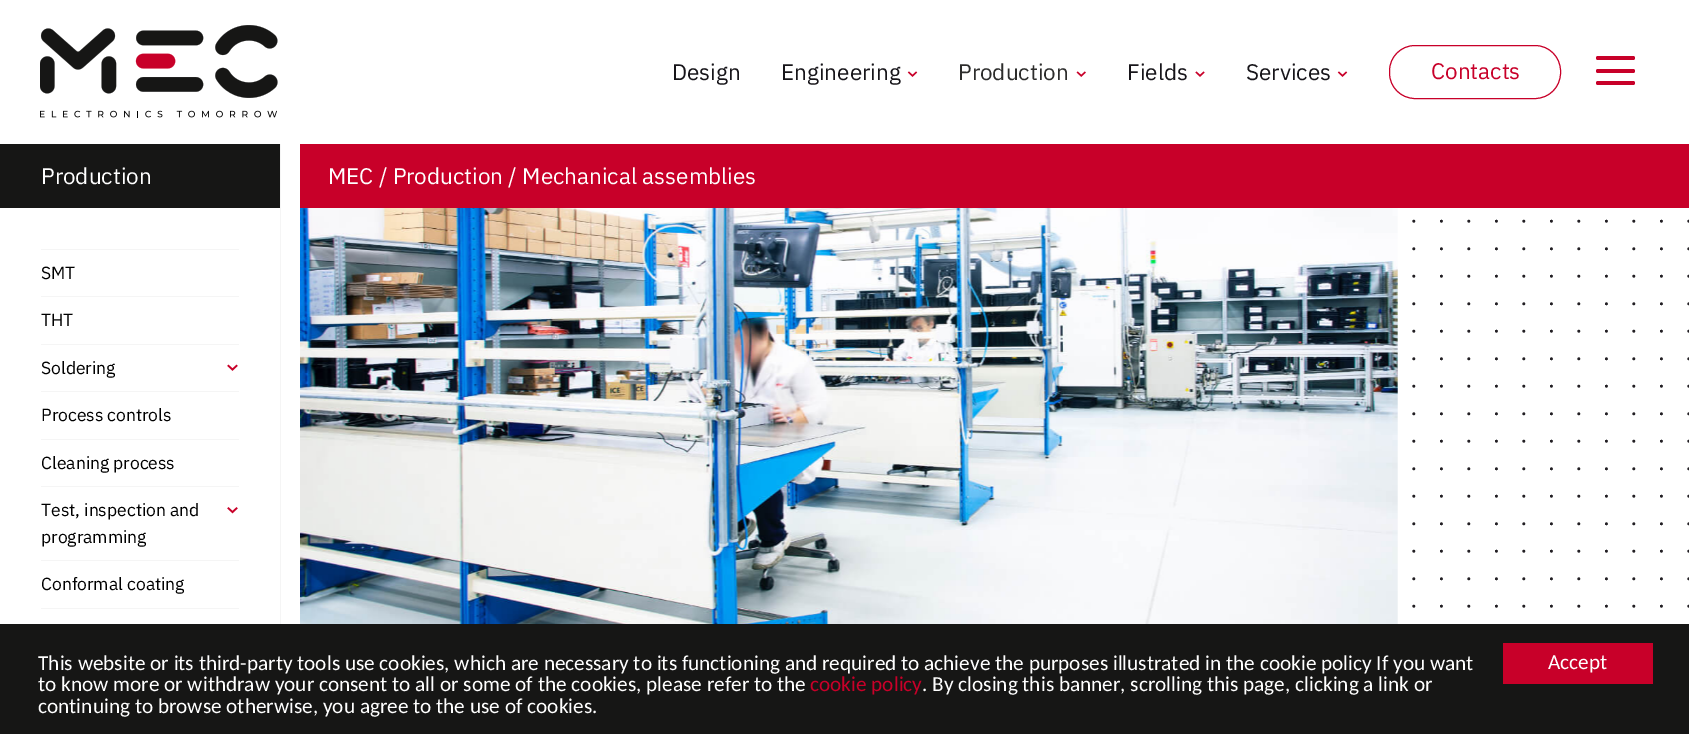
%!PS
<< /PageSize [1689 734] >> setpagedevice
/rgb { 3 { 255 div 3 1 roll } repeat setrgbcolor } def
/font { [ exch dup neg 0 0 3 -1 roll 0 0 ] selectfont } def
/text { moveto show } def
/roundrect { 5 dict begin { /r /h /w /y /x } { exch def } forall
  x r add y moveto x w add y 2 copy h add r arct x w add y h add x 1 index r arct
  x y h add x y r arct x y 2 copy exch w add exch r arct closepath end } def
/picture { 5 dict begin { /h /w /y /x /name } { exch def } forall
  gsave x y translate w h scale
  w h 8 [w 0 0 h 0 0] name (r) file false 3 colorimage grestore end } def
0 734 translate 1 -1 scale
4 setmiterlimit
255 255 255 rgb
0 0 1689 734 rectfill
(img_01.rgb) 40 25 238 93 picture
(img_02.rgb) 907 71 11 6 picture
(img_03.rgb) 1076 71 10 6 picture
(img_04.rgb) 1195 71 10 6 picture
(img_02.rgb) 1337 71 11 6 picture
200 0 41 rgb
1389.5 45.5 171 53 25.5 roundrect stroke
1596 81 39 4 2 roundrect fill
1596 56 39 4 2 roundrect fill
1596 69 39 4 2 roundrect fill
245 245 245 rgb
280 144 1 480 rectfill
22 22 21 rgb
0 144 280 64 rectfill
245 245 245 rgb
41 249 198 1 rectfill
41 296 198 1 rectfill
41 344 198 1 rectfill
(img_05.rgb) 227 364 11 7 picture
41 391 198 1 rectfill
41 439 198 1 rectfill
41 486 198 1 rectfill
(img_06.rgb) 227 507 11 7 picture
41 560 198 1 rectfill
41 608 198 1 rectfill
34 31 36 rgb
2.5 setlinewidth
1 setlinecap
[0 27.5] 0 setdash
313.8 221.2 moveto 1375.2 0 rlineto stroke
313.8 248.8 moveto 1375.2 0 rlineto stroke
313.8 276.2 moveto 1375.2 0 rlineto stroke
313.8 303.8 moveto 1375.2 0 rlineto stroke
313.8 331.2 moveto 1375.2 0 rlineto stroke
313.8 358.8 moveto 1375.2 0 rlineto stroke
313.8 386.2 moveto 1375.2 0 rlineto stroke
313.8 413.8 moveto 1375.2 0 rlineto stroke
313.8 441.2 moveto 1375.2 0 rlineto stroke
313.8 468.8 moveto 1375.2 0 rlineto stroke
313.8 496.2 moveto 1375.2 0 rlineto stroke
313.8 523.8 moveto 1375.2 0 rlineto stroke
313.8 551.2 moveto 1375.2 0 rlineto stroke
313.8 578.8 moveto 1375.2 0 rlineto stroke
313.8 606.2 moveto 1375.2 0 rlineto stroke
313.8 221.2 moveto 1375.2 0 rlineto stroke
313.8 248.8 moveto 1375.2 0 rlineto stroke
313.8 276.2 moveto 1375.2 0 rlineto stroke
313.8 303.8 moveto 1375.2 0 rlineto stroke
313.8 331.2 moveto 1375.2 0 rlineto stroke
313.8 358.8 moveto 1375.2 0 rlineto stroke
313.8 386.2 moveto 1375.2 0 rlineto stroke
313.8 413.8 moveto 1375.2 0 rlineto stroke
313.8 441.2 moveto 1375.2 0 rlineto stroke
313.8 468.8 moveto 1375.2 0 rlineto stroke
313.8 496.2 moveto 1375.2 0 rlineto stroke
313.8 523.8 moveto 1375.2 0 rlineto stroke
313.8 551.2 moveto 1375.2 0 rlineto stroke
313.8 578.8 moveto 1375.2 0 rlineto stroke
313.8 606.2 moveto 1375.2 0 rlineto stroke
200 0 41 rgb
300 144 1389 64 rectfill
(img_07.rgb) 300 208 1098 416 picture
22 22 21 rgb
0 624 1689 110 rectfill
200 0 41 rgb
1503 643 150 41 rectfill
/IBMPlexSans-Regular 22.5 font
23 21 26 rgb
(Design) 672 80 text
(Engineering) 781 80 text
45 45 44 rgb
(Production) 958 80 text
23 21 26 rgb
(Fields) 1127 80 text
(Services) 1246 80 text
200 0 41 rgb
(Contacts) 1431 79 text
255 255 255 rgb
(Production) 41 184 text
/IBMPlexSans-Regular 17.5 font
0 0 0 rgb
(SMT) 41 279 text
(THT) 41 326 text
(Soldering) 41 374 text
(Process controls) 41 421 text
(Cleaning process) 41 469 text
(Test, inspection and) 41 516 text
(programming) 41 543 text
(Conformal coating) 41 590 text
/IBMPlexSans-Regular 22.5 font
255 255 255 rgb
(MEC / Production / Mechanical assemblies) 328 184 text
/Carlito-Regular 21.25 font
(This website or its third-party tools use cookies, which are necessary to its functioning and required to achieve the purposes illustrated in the cookie policy If you want) 38 670 text
(to know more or withdraw your consent to all or some of the cookies, please refer to the) 38 691 text
200 0 41 rgb
(cookie policy) 810 691 text
255 255 255 rgb
(. By closing this banner, scrolling this page, clicking a link or) 922 691 text
(continuing to browse otherwise, you agree to the use of cookies.) 38 713 text
(Accept) 1548 669 text
showpage
